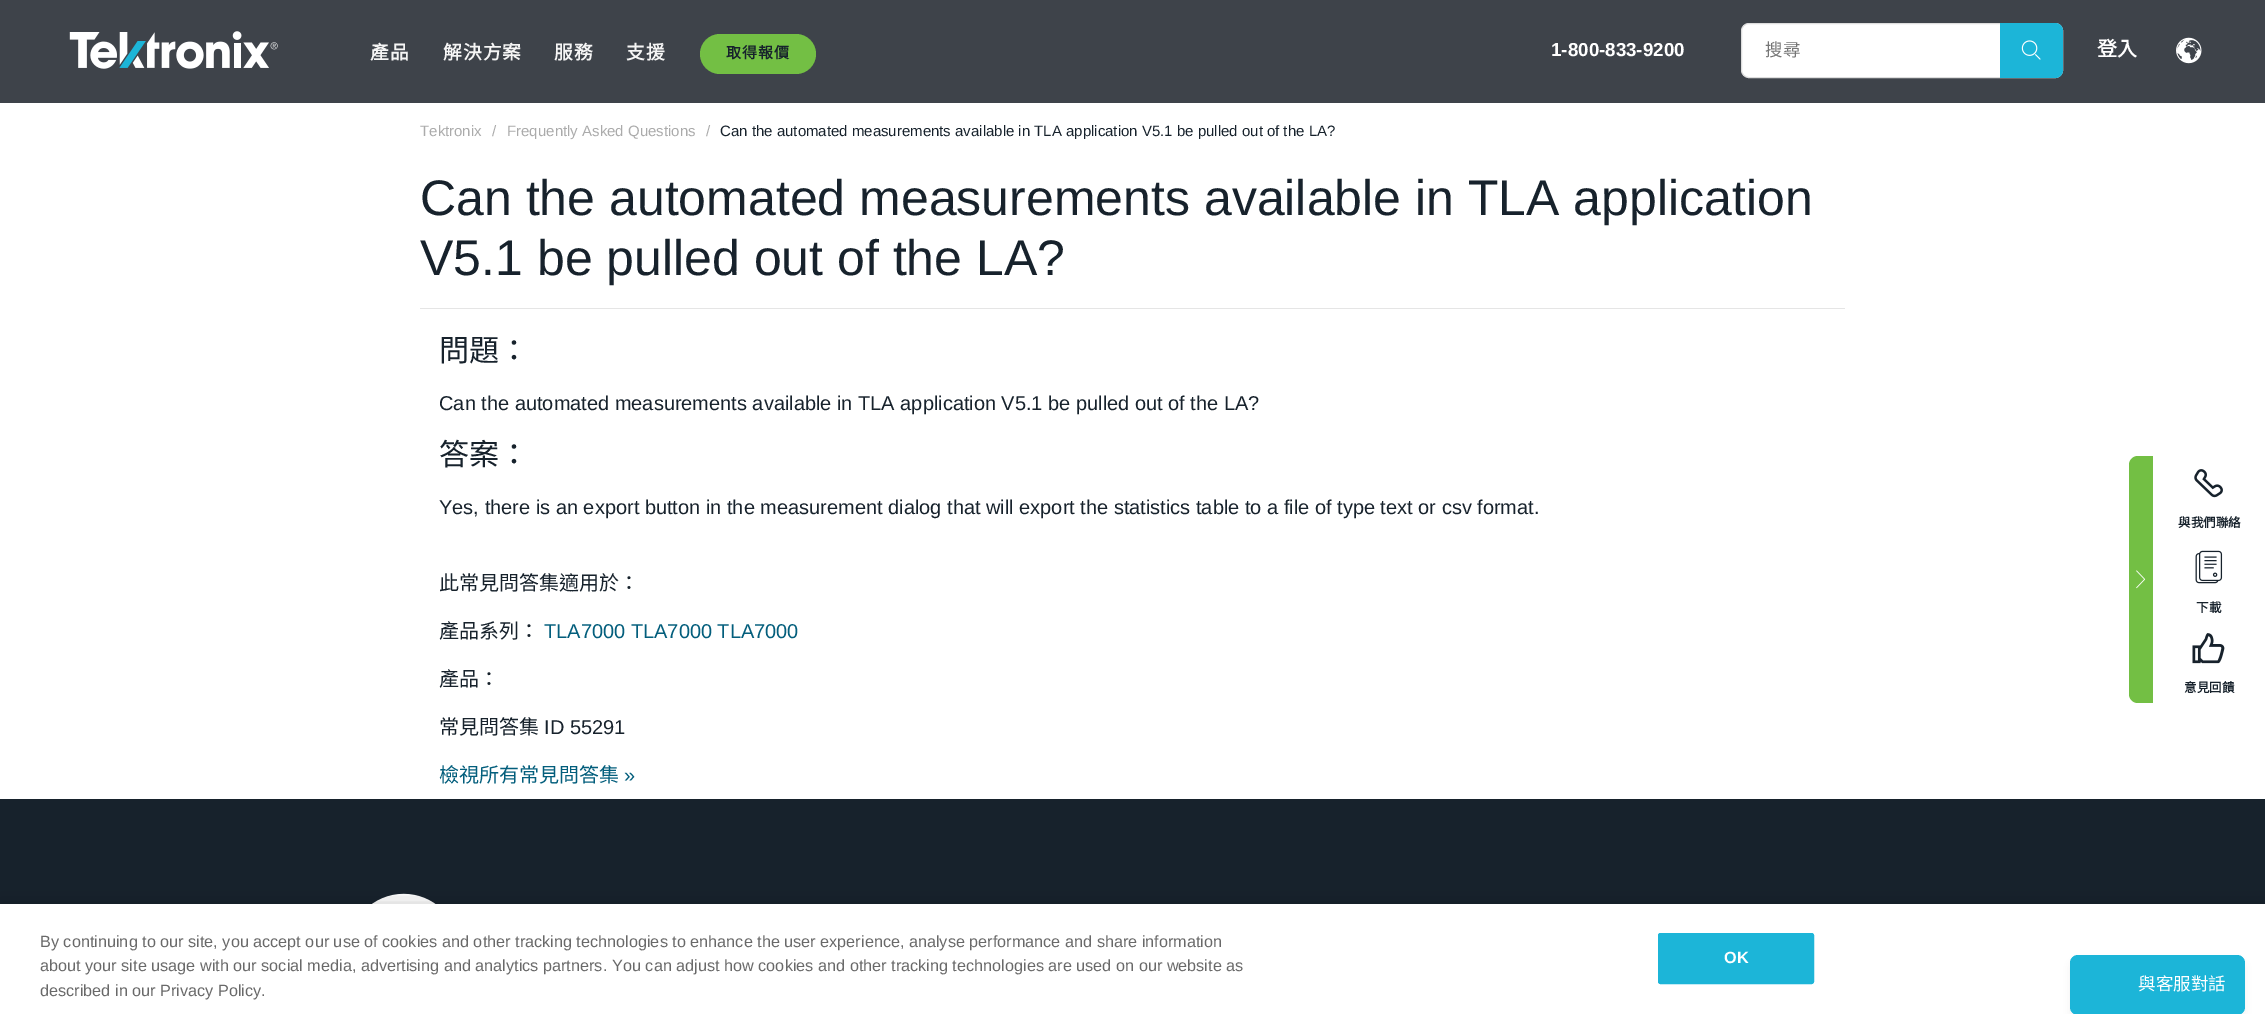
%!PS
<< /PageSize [2265 1014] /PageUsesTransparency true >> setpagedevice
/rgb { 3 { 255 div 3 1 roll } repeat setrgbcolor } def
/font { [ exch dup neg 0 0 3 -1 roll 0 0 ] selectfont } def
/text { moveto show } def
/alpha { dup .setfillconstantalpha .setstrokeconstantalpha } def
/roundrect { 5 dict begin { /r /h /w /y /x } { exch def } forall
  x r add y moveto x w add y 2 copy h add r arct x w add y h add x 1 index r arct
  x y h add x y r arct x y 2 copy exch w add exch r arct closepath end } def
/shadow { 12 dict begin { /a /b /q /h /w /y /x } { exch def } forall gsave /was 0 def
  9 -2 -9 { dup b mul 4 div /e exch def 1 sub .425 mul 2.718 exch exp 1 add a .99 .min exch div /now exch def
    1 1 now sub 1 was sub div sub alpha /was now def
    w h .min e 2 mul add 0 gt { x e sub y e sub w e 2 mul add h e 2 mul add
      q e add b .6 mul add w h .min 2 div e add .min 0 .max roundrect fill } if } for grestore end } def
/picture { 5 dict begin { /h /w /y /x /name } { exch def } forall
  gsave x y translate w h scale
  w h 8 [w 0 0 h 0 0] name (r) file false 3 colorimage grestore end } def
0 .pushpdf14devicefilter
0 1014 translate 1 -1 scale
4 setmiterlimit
255 255 255 rgb
0 0 2265 1014 rectfill
62 67 74 rgb
0 0 2265 103 rectfill
(img_01.rgb) 69 31 209 38 picture
115 191 68 rgb
700 34 116 40 20 roundrect fill
255 255 255 rgb
1741.5 23.5 321 54 7.5 roundrect gsave fill grestore
221 221 221 rgb
stroke
28 181 216 rgb
2000 23 moveto 55 0 rlineto 4.5 0 8 3.5 8 8 rcurveto 0 39 rlineto 0 4.5 -3.5 8 -8 8 rcurveto -55 0 rlineto closepath fill
(img_02.rgb) 2021 40 20 20 picture
(img_03.rgb) 2176 37 26 27 picture
229 229 229 rgb
420 308 1425 1 rectfill
115 191 68 rgb
2138 456 moveto 15 0 rlineto 0 247 rlineto -15 0 rlineto -5 0 -9 -4 -9 -9 rcurveto 0 -229 rlineto 0 -5 4 -9 9 -9 rcurveto closepath fill
(img_04.rgb) 2136 570 10 19 picture
(img_05.rgb) 2194 469 29 29 picture
(img_06.rgb) 2195 550 28 34 picture
(img_07.rgb) 2192 633 33 31 picture
23 34 44 rgb
0 799 2265 105 rectfill
(img_08.rgb) 372 893 64 11 picture
0 0 0 rgb
0 904 2265 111 0 11 0.2 shadow
255 255 255 rgb
0 904 2265 110 rectfill
28 181 216 rgb
1658.5 933.5 155 50 2 roundrect gsave fill grestore
stroke
21 22 24 rgb
2070 960 175 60 8 4 0.05 shadow
28 181 216 rgb
2070 955 175 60 8 roundrect fill
/NotoSansCJKTC-Bold 18.75 font
245 245 245 rgb
370 59 moveto 1 0 (產品) ashow
443 59 moveto 1 0 (解決方案) ashow
554 59 moveto 1 0 (服務) ashow
626 59 moveto 1 0 (支援) ashow
/NotoSansCJKTC-Bold 15 font
23 34 44 rgb
726 58 moveto 1 0 (取得報價) ashow
/LiberationSans-Bold 18.75 font
255 255 255 rgb
(1-800-833-9200) 1551 56 text
/NotoSansCJKTC-Regular 17.5 font
117 117 117 rgb
(搜尋) 1765 56 text
/NotoSansCJKTC-Bold 20 font
255 255 255 rgb
(登入) 2097 56 text
/LiberationSans-Regular 15 font
171 171 171 rgb
(Tektronix) 420 136 text
(/) 492 136 text
(Frequently Asked Questions) 507 136 text
(/) 706 136 text
23 34 44 rgb
(Can the automated measurements available in TLA application V5.1 be pulled out of the LA?) 720 136 text
/LiberationSans-Regular 50 font
(Can the automated measurements available in TLA application) 420 215 text
(V5.1 be pulled out of the LA?) 420 275 text
/NotoSansCJKTC-Regular 30 font
(問題：) 439 361 text
/LiberationSans-Regular 20 font
(Can the automated measurements available in TLA application V5.1 be pulled out of the LA?) 439 410 text
/NotoSansCJKTC-Regular 30 font
(答案：) 439 465 text
/LiberationSans-Regular 20 font
(Yes, there is an export button in the measurement dialog that will export the statistics table to a file of type text or csv format.) 439 514 text
/NotoSansCJKTC-Regular 20 font
(此常見問答集適用於：) 439 590 text
(產品系列：) 439 638 text
/LiberationSans-Regular 20 font
3 94 124 rgb
(TLA7000 TLA7000 TLA7000) 544 638 text
/NotoSansCJKTC-Regular 20 font
23 34 44 rgb
(產品：) 439 686 text
(常見問答集) 439 734 text
/LiberationSans-Regular 20 font
(ID 55291) 544 734 text
/NotoSansCJKTC-Regular 20 font
3 94 124 rgb
(檢視所有常見問答集) 439 782 text
/LiberationSans-Regular 20 font
(») 624 782 text
/NotoSansCJKTC-Bold 12.5 font
23 34 44 rgb
(與我們聯絡) 2178 527 text
(下載) 2196 612 text
(意見回饋) 2184 692 text
/LiberationSans-Regular 16.25 font
105 105 105 rgb
(By continuing to our site, you accept our use of cookies and other tracking technologies to enhance the user experience, analyse performance and share information) 40 947 text
(about your site usage with our social media, advertising and analytics partners.) 40 971 text
(You can adjust how cookies and other tracking technologies are used on our website as) 612 971 text
(described in our Privacy Policy.) 40 996 text
/LiberationSans-Bold 16.25 font
255 255 255 rgb
(OK) 1724 963 text
/NotoSansCJKTC-Regular 17.5 font
(與客服對話) 2138 990 text
.poppdf14devicefilter showpage
